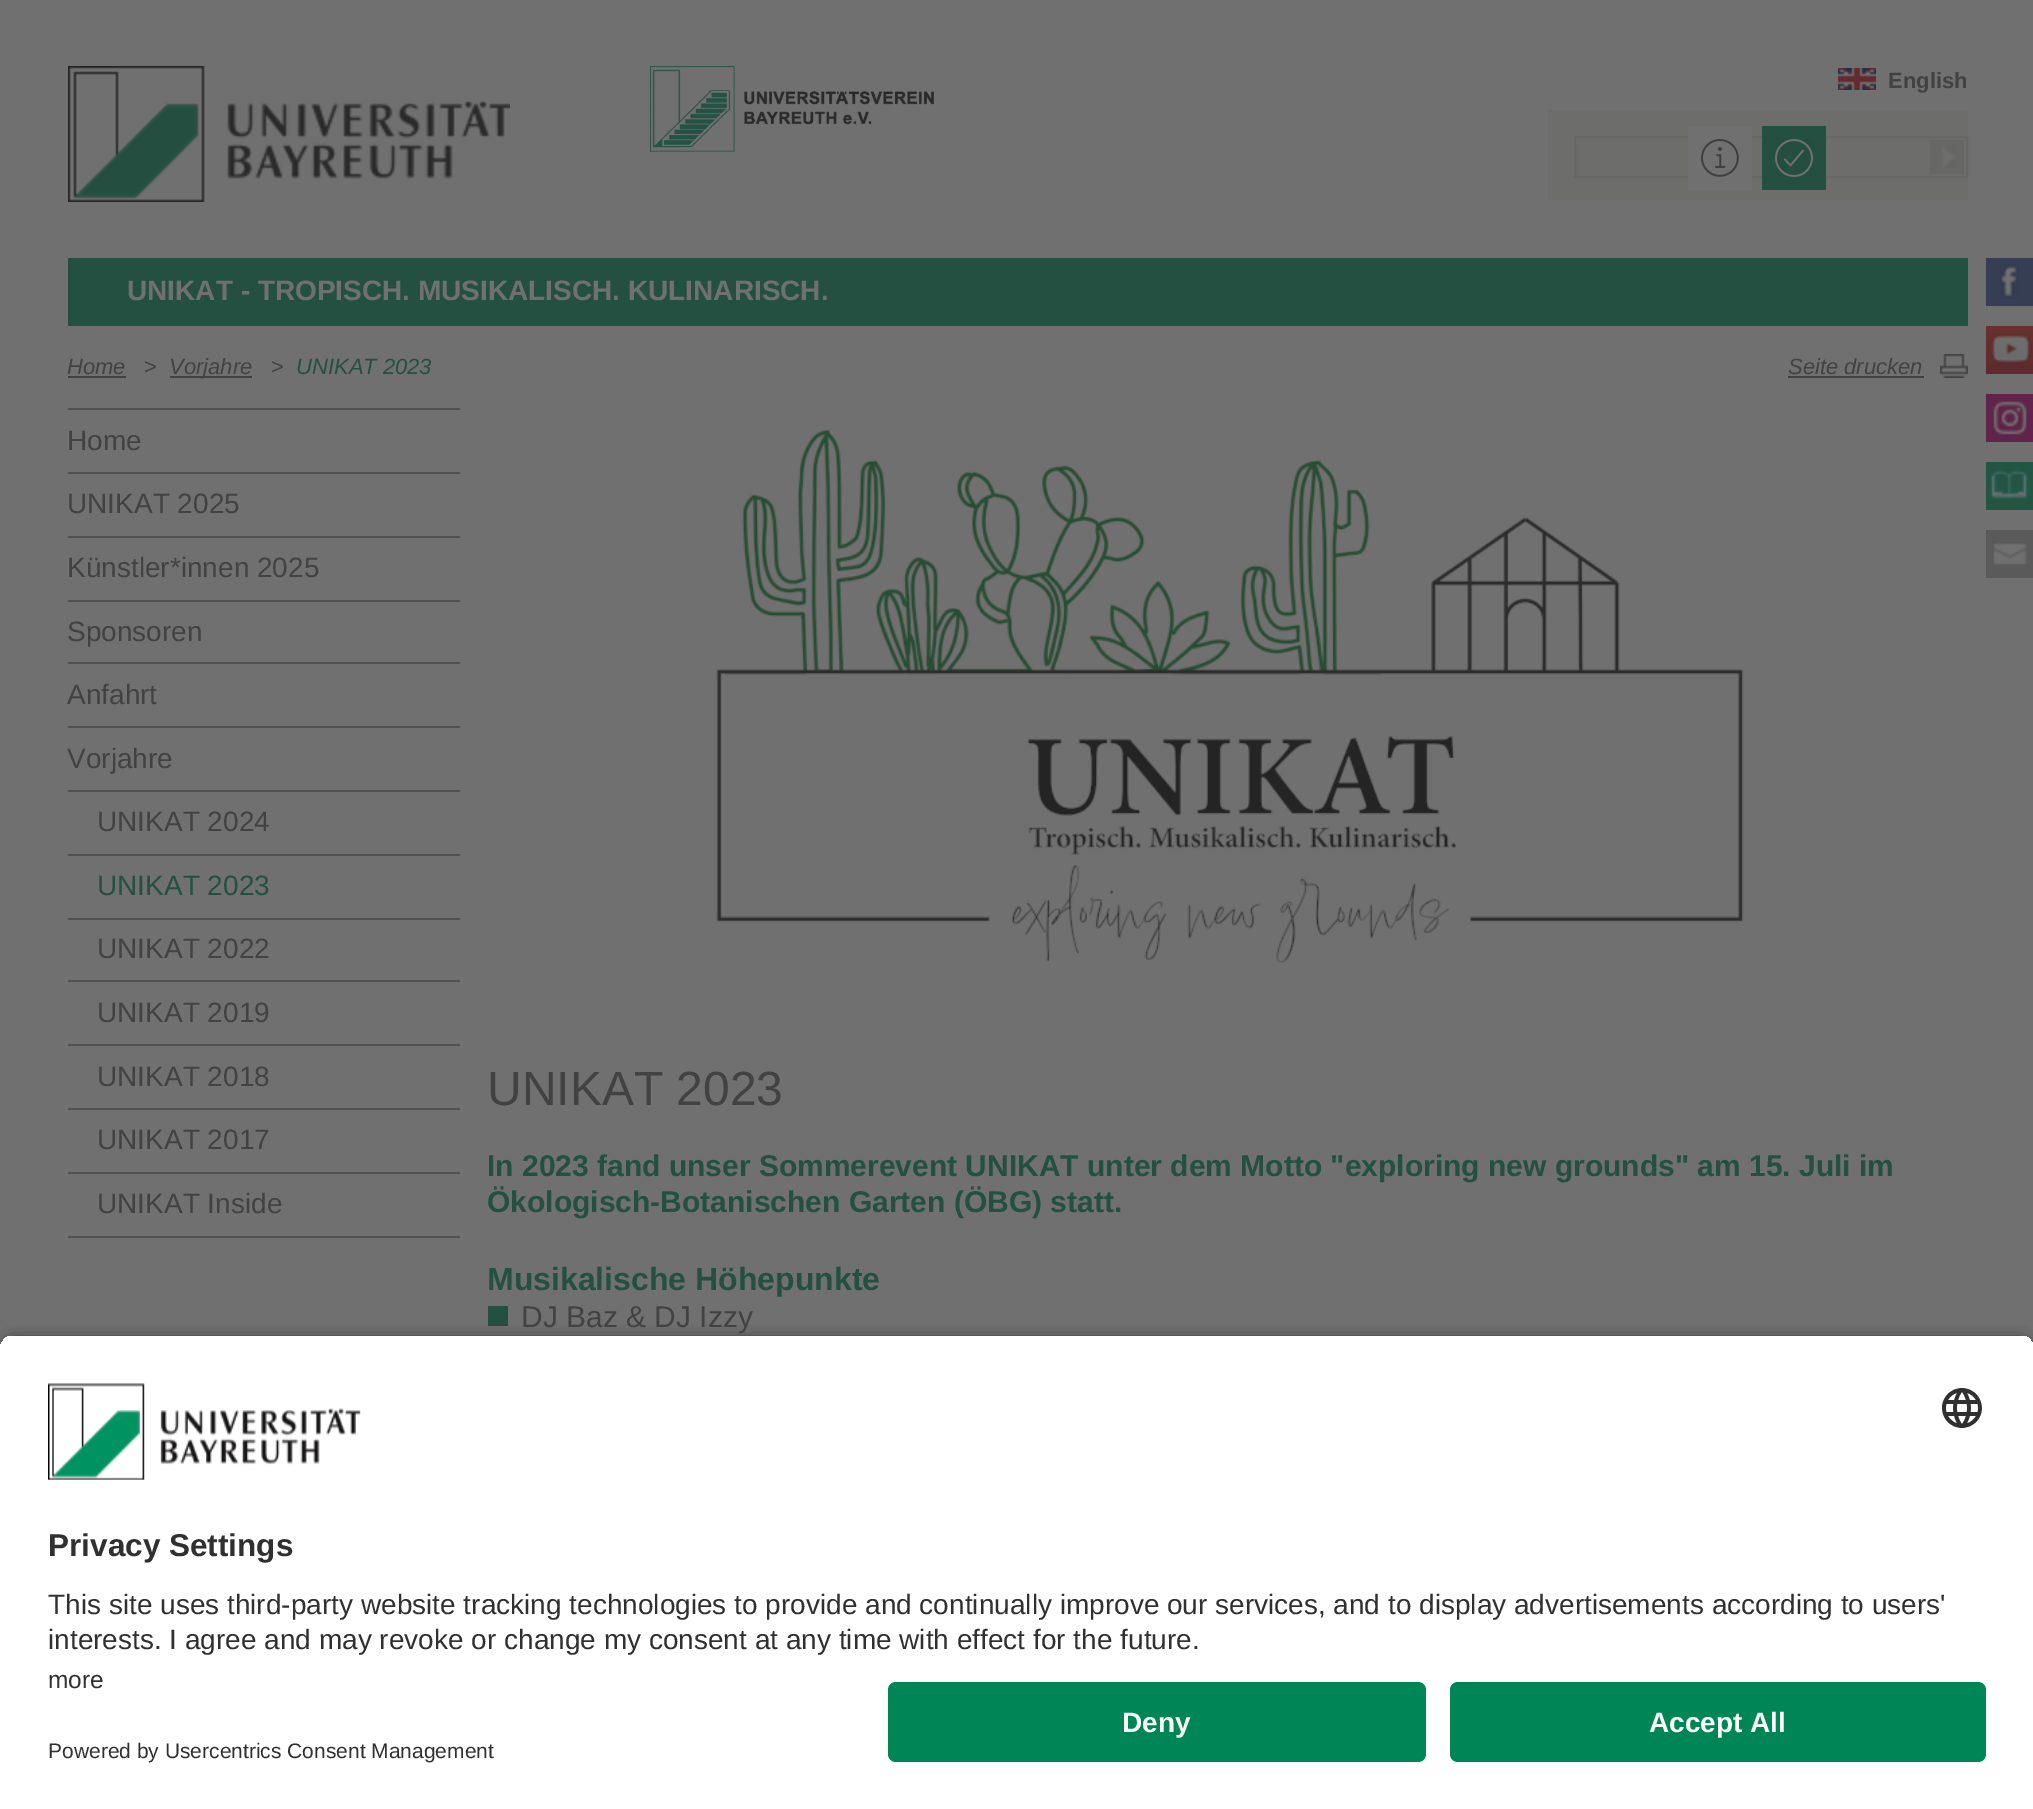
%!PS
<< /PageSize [2033 1809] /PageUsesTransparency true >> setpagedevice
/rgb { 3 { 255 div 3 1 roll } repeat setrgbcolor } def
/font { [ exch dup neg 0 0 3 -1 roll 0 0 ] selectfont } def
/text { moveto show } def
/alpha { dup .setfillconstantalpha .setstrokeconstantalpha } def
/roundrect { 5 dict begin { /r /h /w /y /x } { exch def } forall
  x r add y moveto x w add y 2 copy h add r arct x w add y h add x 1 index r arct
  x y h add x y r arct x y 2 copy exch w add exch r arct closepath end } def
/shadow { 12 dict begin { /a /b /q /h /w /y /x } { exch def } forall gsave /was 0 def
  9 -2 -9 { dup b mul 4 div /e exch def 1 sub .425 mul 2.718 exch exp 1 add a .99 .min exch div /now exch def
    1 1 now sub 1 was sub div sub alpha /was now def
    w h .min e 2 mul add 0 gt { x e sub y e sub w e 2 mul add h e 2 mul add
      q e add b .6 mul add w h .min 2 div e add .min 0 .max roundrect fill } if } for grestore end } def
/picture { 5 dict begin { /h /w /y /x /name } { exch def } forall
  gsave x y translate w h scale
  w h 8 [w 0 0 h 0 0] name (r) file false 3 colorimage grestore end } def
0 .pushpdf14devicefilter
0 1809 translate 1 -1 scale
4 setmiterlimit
112 112 112 rgb
0 0 2033 1809 rectfill
109 109 108 rgb
1548 110 420 90 rectfill
(img_01.rgb) 68 66 442 136 picture
(img_02.rgb) 650 66 284 86 picture
(img_03.rgb) 1838 68 38 22 picture
103 103 102 rgb
2 setlinewidth
1575 137 392 40 rectstroke
112 112 112 rgb
1688 126 64 64 rectfill
(img_04.rgb) 1701 139 38 38 picture
36 80 65 rgb
1762 126 64 64 rectfill
(img_05.rgb) 1775 139 38 38 picture
103 103 102 rgb
1930 140 34 34 rectfill
(img_06.rgb) 1941 145 14 24 picture
36 80 65 rgb
68 258 1900 68 rectfill
66 66 66 rgb
68 376 58 2 rectfill
170 376 82 2 rectfill
(img_07.rgb) 1940 354 28 24 picture
1788 376 136 2 rectfill
82 82 82 rgb
68 1236 392 2 rectfill
68 408 392 2 rectfill
68 472 392 2 rectfill
68 536 392 2 rectfill
68 600 392 2 rectfill
68 662 392 2 rectfill
68 726 392 2 rectfill
68 790 392 2 rectfill
68 854 392 2 rectfill
68 918 392 2 rectfill
68 980 392 2 rectfill
68 1044 392 2 rectfill
68 1108 392 2 rectfill
68 1172 392 2 rectfill
(img_08.rgb) 488 408 1480 592 picture
36 80 65 rgb
488 1306 20 20 rectfill
53 62 82 rgb
1986 258 47 48 rectfill
(img_09.rgb) 2000 264 19 35 picture
(img_10.rgb) 1986 326 47 48 picture
96 36 75 rgb
1986 394 47 48 rectfill
(img_11.rgb) 1993 401 34 34 picture
36 85 67 rgb
1986 462 47 48 rectfill
(img_12.rgb) 1989 469 40 30 picture
90 90 90 rgb
1986 530 47 48 rectfill
(img_13.rgb) 1993 543 34 22 picture
0 0 0 rgb
0 1340 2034 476 16 7 0.8 shadow
gsave
16 1334 moveto 2002 0 rlineto 9 0 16 7 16 16 rcurveto 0 316 rlineto -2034 0 rlineto 0 -316 rlineto 0 -9 7 -16 16 -16 rcurveto closepath clip newpath
255 255 255 rgb
0 1336 2033 330 rectfill
grestore
(img_14.rgb) 48 1383 313 97 picture
(img_15.rgb) 1942 1388 40 40 picture
255 255 255 rgb
0 1666 2033 143 rectfill
0 133 87 rgb
888 1682 538 80 8 roundrect fill
1450 1682 536 80 8 roundrect fill
/LiberationSans-Bold 22 font
66 66 66 rgb
(English) 1888 88 text
/LiberationSans-Bold 28 font
112 112 112 rgb
(UNIKAT - TROPISCH. MUSIKALISCH. KULINARISCH.) 127 300 text
/LiberationSans-Italic 22 font
66 66 66 rgb
(Home) 67 374 text
/LiberationSans-Regular 22 font
(>) 144 374 text
/LiberationSans-Italic 22 font
(Vorjahre) 169 374 text
/LiberationSans-Regular 22 font
(>) 271 374 text
/LiberationSans-Italic 22 font
36 80 65 rgb
(UNIKAT 2023) 296 374 text
66 66 66 rgb
(Seite drucken) 1788 374 text
/LiberationSans-Regular 28 font
(Home) 67 450 text
(UNIKAT 2025) 67 513 text
(Künstler*innen 2025) 67 577 text
(Sponsoren) 67 641 text
(Anfahrt) 67 704 text
(Vorjahre) 67 768 text
(UNIKAT 2024) 97 831 text
36 80 65 rgb
(UNIKAT 2023) 97 895 text
66 66 66 rgb
(UNIKAT 2022) 97 958 text
(UNIKAT 2019) 97 1022 text
(UNIKAT 2018) 97 1086 text
(UNIKAT 2017) 97 1149 text
(UNIKAT Inside) 97 1213 text
/LiberationSans-Regular 48 font
(UNIKAT 2023) 487 1105 text
/LiberationSans-Bold 30 font
36 80 65 rgb
(In 2023 fand unser Sommerevent UNIKAT unter dem Motto "exploring new grounds" am 15. Juli im) 487 1176 text
(Ökologisch-Botanischen Garten \(ÖBG\) statt.) 487 1212 text
/LiberationSans-Bold 32 font
(Musikalische Höhepunkte) 487 1290 text
/LiberationSans-Regular 30 font
66 66 66 rgb
(DJ Baz & DJ Izzy) 521 1327 text
/LiberationSans-Bold 31.5 font
48 48 48 rgb
(Privacy Settings) 48 1556 text
/LiberationSans-Regular 28 font
(This site uses third-party website tracking technologies to provide and continually improve our services, and to display advertisements according to users') 48 1614 text
(interests. I agree and may revoke or change my consent at any time with effect for the future.) 48 1649 text
/LiberationSans-Regular 24.5 font
(more) 48 1688 text
/LiberationSans-Regular 21 font
(Powered by Usercentrics Consent Management) 48 1758 text
/LiberationSans-Bold 28 font
250 250 250 rgb
(Deny) 1122 1732 text
(Accept All) 1649 1732 text
.poppdf14devicefilter showpage
